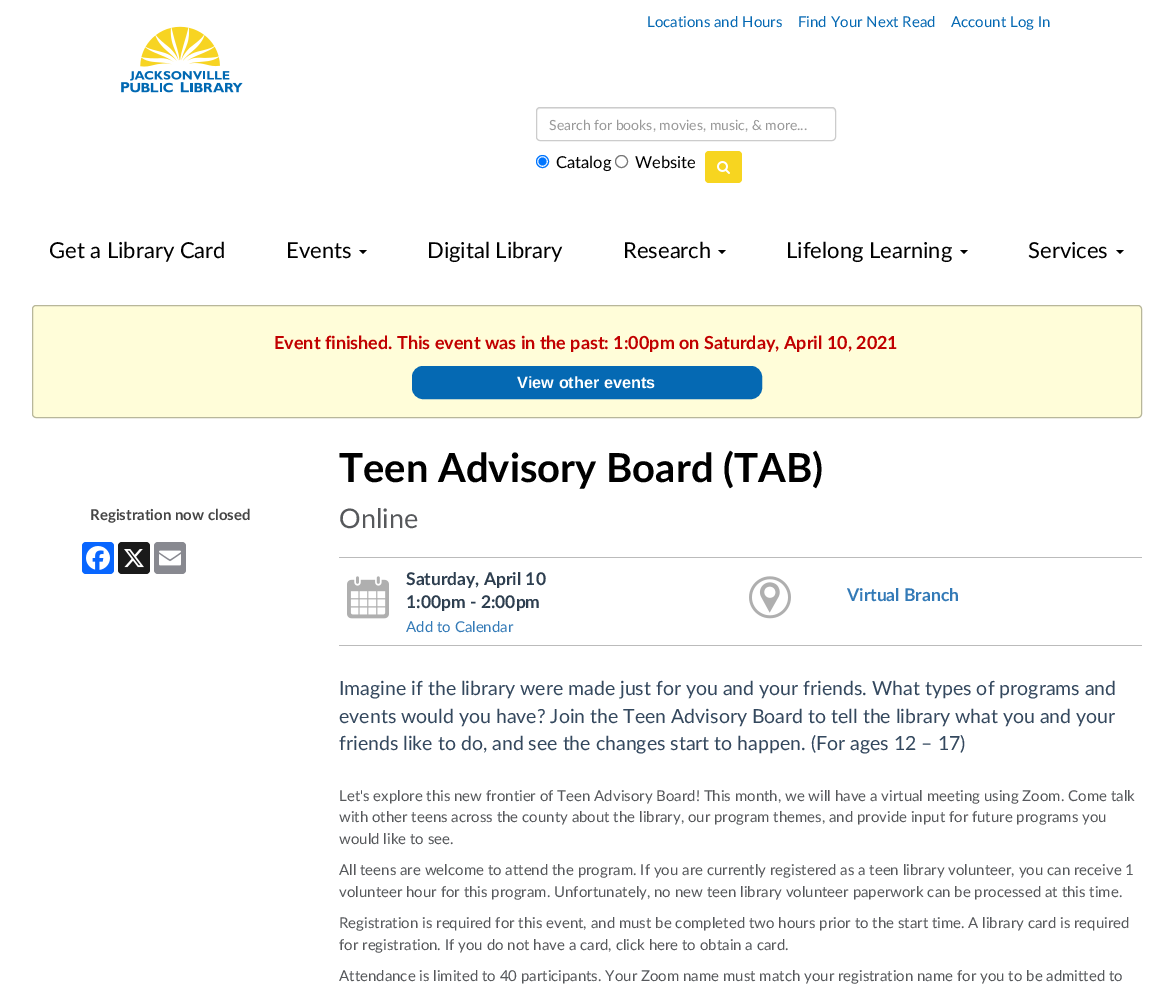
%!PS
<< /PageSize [1173 997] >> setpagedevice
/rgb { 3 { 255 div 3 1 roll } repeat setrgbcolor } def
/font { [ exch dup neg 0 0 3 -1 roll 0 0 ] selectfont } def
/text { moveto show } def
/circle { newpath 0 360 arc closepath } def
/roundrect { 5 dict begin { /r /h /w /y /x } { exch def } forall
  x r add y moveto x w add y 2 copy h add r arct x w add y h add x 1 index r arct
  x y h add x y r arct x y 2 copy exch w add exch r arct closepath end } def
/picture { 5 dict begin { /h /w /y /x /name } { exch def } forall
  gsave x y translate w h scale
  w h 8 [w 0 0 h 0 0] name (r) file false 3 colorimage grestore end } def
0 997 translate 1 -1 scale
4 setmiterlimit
255 255 255 rgb
0 0 1173 997 rectfill
(img_01.rgb) 121 26 122 67 picture
236 236 236 rgb
540 109 moveto 292 0 rlineto 2 0 3 1 3 3 rcurveto -1 -3 rlineto -1 -1 rlineto -293 0 rlineto -2 0 -3 2 -3 4 rcurveto 0 -2 1 -3 3 -3 rcurveto closepath fill
204 204 204 rgb
536.5 107.5 299 33 3.5 roundrect stroke
0 117 255 rgb
542.5 161.5 6 circle stroke
542.5 161.5 4 circle fill
118 118 118 rgb
621.5 161.5 6 circle stroke
247 213 32 rgb
705 151 37 32 4 roundrect fill
(img_02.rgb) 717 161 13 13 picture
0 0 0 rgb
359 250 moveto 8 0 rlineto -4 4 rlineto closepath fill
718 250 moveto 8 0 rlineto -4 4 rlineto closepath fill
960 250 moveto 8 0 rlineto -4 4 rlineto closepath fill
1116 250 moveto 8 0 rlineto -4 4 rlineto closepath fill
255 253 217 rgb
32.5 305.5 1109 112 3.5 roundrect gsave fill grestore
184 183 154 rgb
stroke
5 105 179 rgb
413 367 348 31 10 roundrect gsave fill grestore
2 setlinewidth
stroke
8 102 255 rgb
82 542 32 32 4 roundrect fill
(img_03.rgb) 86 546 24 24 picture
26 26 26 rgb
118 542 32 32 4 roundrect fill
(img_04.rgb) 124 549 20 19 picture
136 137 144 rgb
154 542 32 32 4 roundrect fill
(img_05.rgb) 159 550 22 16 picture
187 187 187 rgb
339 557 803 1 rectfill
(img_06.rgb) 347 576 42 43 picture
(img_07.rgb) 749 576 42 43 picture
339 645 803 1 rectfill
/Lato-Regular 15 font
5 105 179 rgb
(Locations and Hours) 647 27 text
(Find Your Next Read) 798 27 text
(Account Log In) 951 27 text
/Lato-Regular 14 font
153 153 153 rgb
(Search for books, movies, music, & more...) 549 130 text
/Lato-Regular 16.5 font
0 0 0 rgb
(Catalog) 556 168 text
(Website) 635 168 text
/Lato-Regular 22 font
(Get a Library Card) 49 258 text
(Events) 286 258 text
(Digital Library) 427 258 text
(Research) 623 258 text
(Lifelong Learning) 786 258 text
(Services) 1028 258 text
/Lato-Bold 18 font
193 0 0 rgb
(Event finished. This event was in the past: 1:00pm on Saturday, April 10, 2021) 274 349 text
/LiberationSans-Bold 16.25 font
255 255 255 rgb
(View other events) 517 388 text
/Lato-Bold 15 font
69 69 69 rgb
(Registration now closed) 90 520 text
/Lato-Bold 40 font
0 0 0 rgb
(Teen Advisory Board \(TAB\)) 339 482 text
/Lato-Regular 27 font
86 88 91 rgb
(Online) 339 528 text
/Lato-Bold 17.5 font
45 62 79 rgb
(Saturday, April 10) 406 585 text
(1:00pm - 2:00pm) 406 608 text
/Lato-Regular 15 font
51 122 183 rgb
(Add to Calendar) 406 632 text
/Lato-Bold 17.5 font
(Virtual Branch) 847 601 text
/Lato-Regular 19.5 font
52 72 94 rgb
(Imagine if the library were made just for you and your friends. What types of programs and) 339 695 text
(events would you have? Join the Teen Advisory Board to tell the library what you and your) 339 723 text
(friends like to do, and see the changes start to happen. \(For ages 12 – 17\)) 339 750 text
/Lato-Regular 15 font
86 88 91 rgb
(Let's explore this new frontier of Teen Advisory Board! This month, we will have a virtual meeting using Zoom. Come talk) 339 801 text
(with other teens across the county about the library, our program themes, and provide input for future programs you) 339 822 text
(would like to see.) 339 844 text
(All teens are welcome to attend the program. If you are currently registered as a teen library volunteer, you can receive 1) 339 875 text
(volunteer hour for this program. Unfortunately, no new teen library volunteer paperwork can be processed at this time.) 339 897 text
(Registration is required for this event, and must be completed two hours prior to the start time. A library card is required) 339 928 text
(for registration. If you do not have a card, click here to obtain a card.) 339 950 text
(Attendance is limited to 40 participants. Your Zoom name must match your registration name for you to be admitted to) 339 981 text
showpage
